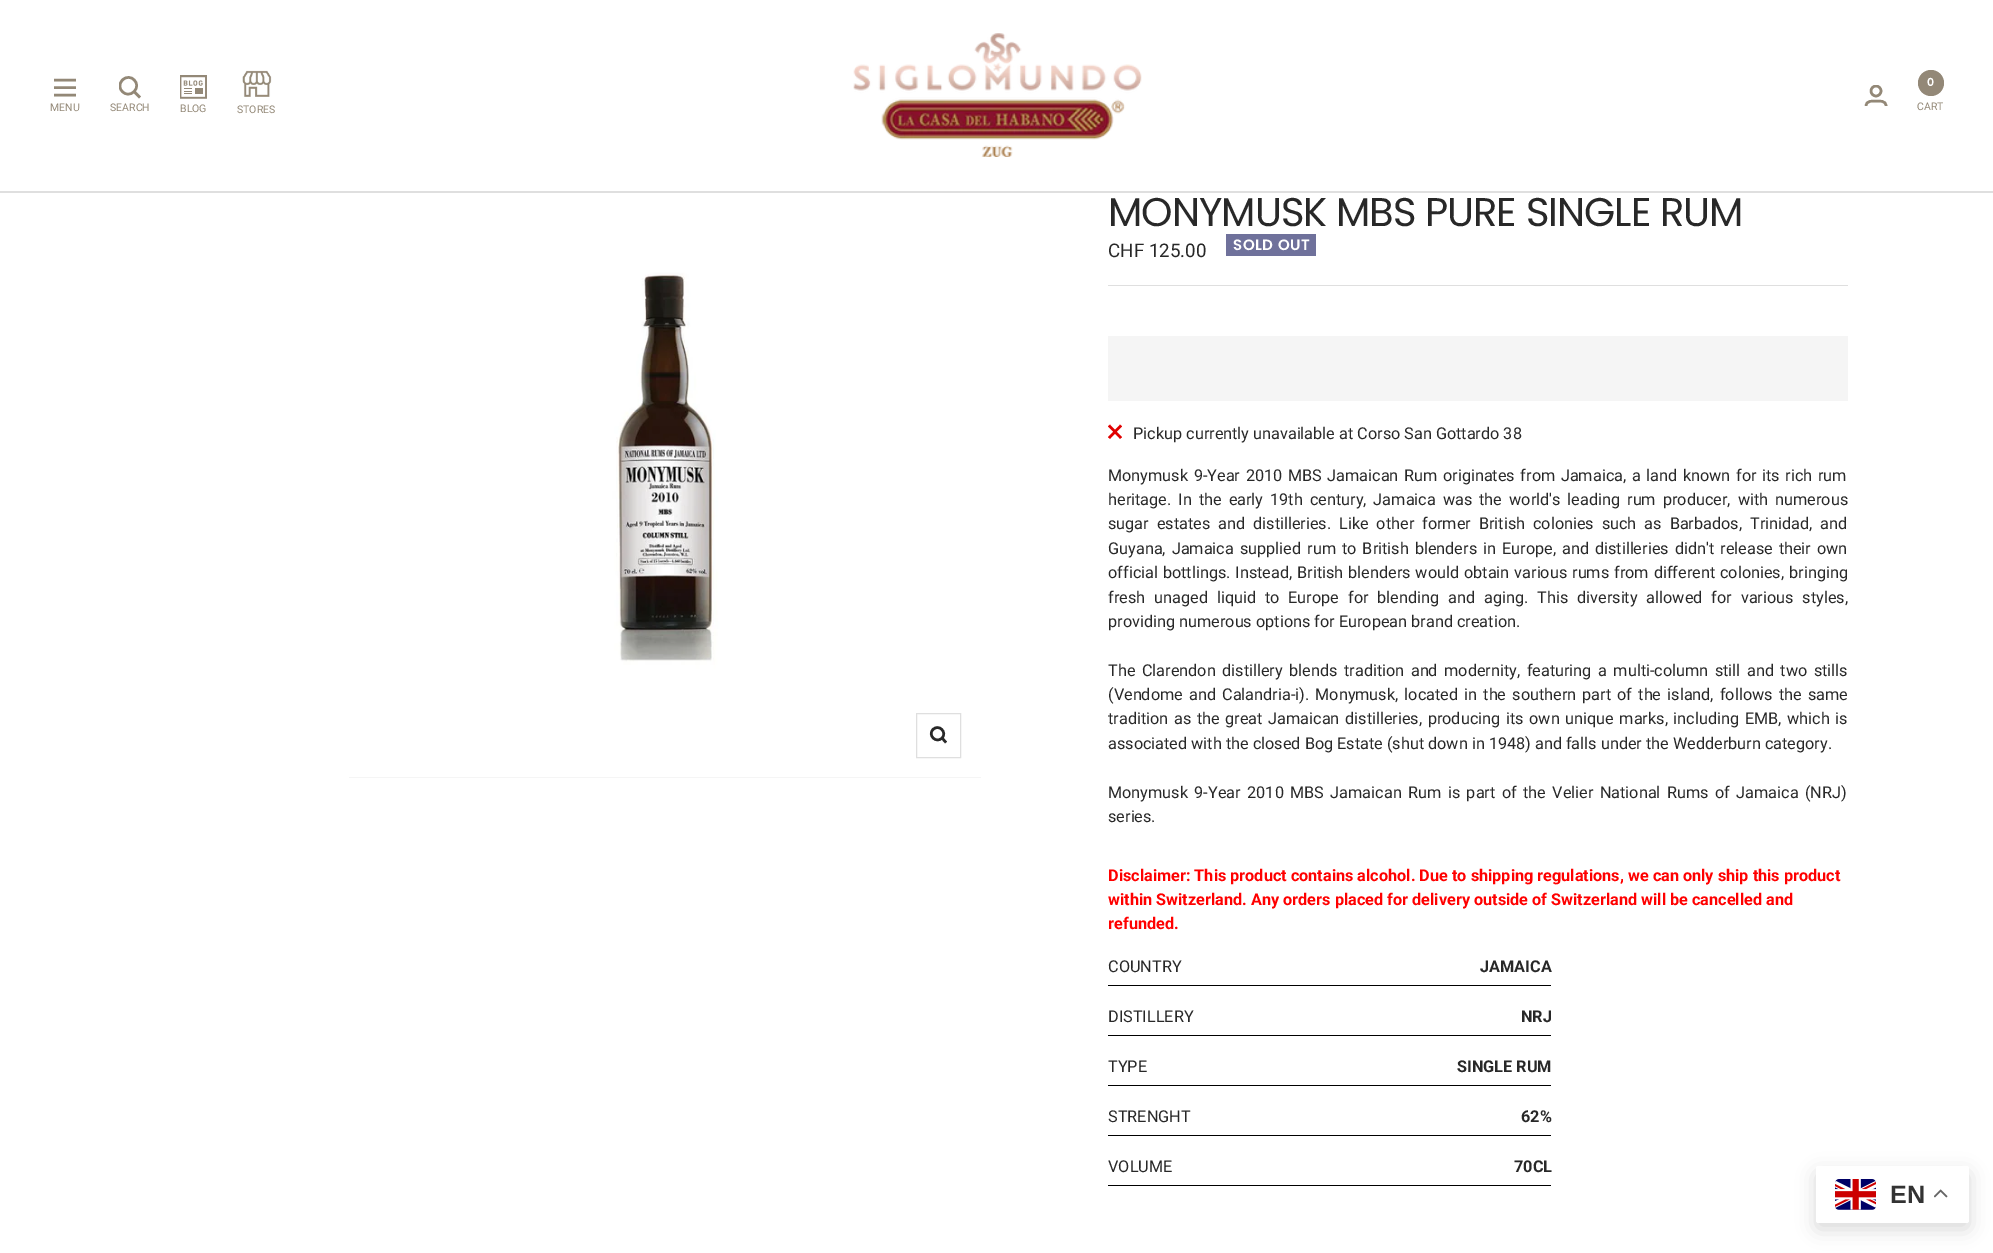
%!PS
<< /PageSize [1993 1253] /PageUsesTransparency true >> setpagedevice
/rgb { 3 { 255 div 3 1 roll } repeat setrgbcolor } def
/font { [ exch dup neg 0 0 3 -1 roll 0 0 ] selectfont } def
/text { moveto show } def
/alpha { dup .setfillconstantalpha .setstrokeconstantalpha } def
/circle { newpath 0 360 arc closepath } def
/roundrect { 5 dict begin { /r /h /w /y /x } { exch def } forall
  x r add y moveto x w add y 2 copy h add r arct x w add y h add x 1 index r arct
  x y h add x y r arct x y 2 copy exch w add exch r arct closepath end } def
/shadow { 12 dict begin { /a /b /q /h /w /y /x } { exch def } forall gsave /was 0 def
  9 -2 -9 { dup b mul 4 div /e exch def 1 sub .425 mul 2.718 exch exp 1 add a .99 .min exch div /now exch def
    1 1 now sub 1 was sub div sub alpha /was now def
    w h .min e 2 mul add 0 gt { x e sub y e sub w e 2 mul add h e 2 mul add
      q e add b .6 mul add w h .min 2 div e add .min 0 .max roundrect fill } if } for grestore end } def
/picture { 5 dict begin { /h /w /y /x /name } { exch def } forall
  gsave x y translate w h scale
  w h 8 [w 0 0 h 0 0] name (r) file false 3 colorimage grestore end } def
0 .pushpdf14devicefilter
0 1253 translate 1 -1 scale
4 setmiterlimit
255 255 255 rgb
0 0 1993 1253 rectfill
223 223 223 rgb
0 191 moveto 0 2 rlineto 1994 0 rlineto 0 -192 rlineto 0 190 rlineto closepath fill
147 136 119 rgb
2.5 setlinewidth
54 80 moveto 22 0 rlineto 54 95 moveto 22 0 rlineto closepath 54 87.5 moveto 22 0 rlineto closepath stroke
gsave
119 76 22 23 rectclip
134 91.5 moveto 8 -7.5 -3.5 -19.5 -11.5 -11.5 rcurveto -8 8 4 19.5 11.5 11.5 rcurveto closepath 134 91.5 moveto 6 6 rlineto stroke
grestore
(img_01.rgb) 180 75 27 24 picture
(img_02.rgb) 242 70 30 27 picture
(img_03.rgb) 853 33 289 124 picture
gsave
1865 85 23 21 rectclip
1876 91 5 circle stroke
grestore
1866 106 moveto 0 -5.5 6.5 -5 10 -5 rcurveto 4 0 10 -0.5 10 5 rcurveto stroke
1931 83 13 circle fill
245 245 245 rgb
349 777 632 1 rectfill
(img_04.rgb) 349 193 632 584 picture
223 223 223 rgb
1 setlinewidth
916.5 713.5 44 44 rectstroke
40 40 40 rgb
2.5 setlinewidth
942 738 moveto 5.5 -5.5 -3 -14.5 -9 -8.5 rcurveto -5.5 5.5 3 14.5 9 8.5 rcurveto closepath 942 738 moveto 4 4.5 rlineto stroke
223 223 223 rgb
1108 285 740 1 rectfill
111 113 155 rgb
1226 234 90 22 rectfill
245 245 245 rgb
1108 336 740 65 rectfill
224 0 0 rgb
1109 425.5 moveto 12 12.5 rlineto 1109 438 moveto 12 -12.5 rlineto stroke
0 0 0 rgb
1108 985 443 1 rectfill
1108 1035 443 1 rectfill
1108 1085 443 1 rectfill
1108 1135 443 1 rectfill
1108 1185 443 1 rectfill
1816 1173 153 56 2.5 9.5 0.15 shadow
255 255 255 rgb
1816 1166 153 57 2.5 roundrect fill
(img_05.rgb) 1835 1179 41 31 picture
(img_06.rgb) 1934 1189 14 9 picture
/Roboto-Regular 10.5 font
147 136 119 rgb
(MENU) 50 111 text
(SEARCH) 110 111 text
(BLOG) 180 112 text
(STORES) 237 113 text
/Poppins-SemiBold 11 font
255 255 255 rgb
(0) 1927 86 text
/Roboto-Regular 10.5 font
147 136 119 rgb
(CART) 1917 110 text
/Poppins-Regular 40 font
40 40 40 rgb
1108 226 moveto -1 0 (MONYMUSK MBS PURE SINGLE RUM) ashow
/Roboto-Regular 18.75 font
(CHF 125.00) 1108 257 text
/Poppins-SemiBold 15 font
255 255 255 rgb
1233 250 moveto 0.5 0 (SOLD OUT) ashow
/Roboto-Regular 16.25 font
40 40 40 rgb
(Pickup currently unavailable at Corso San Gottardo 38) 1133 439 text
1108 481 moveto 1.6 0 32 (Monymusk 9-Year 2010 MBS Jamaican Rum originates from Jamaica, a land known for its rich rum) widthshow
1108 505 moveto 3 0 32 (heritage. In the early 19th century, Jamaica was the world's leading rum producer, with numerous) widthshow
1108 529 moveto 3.9 0 32 (sugar estates and distilleries. Like other former British colonies such as Barbados, Trinidad, and) widthshow
1108 554 moveto 2 0 32 (Guyana, Jamaica supplied rum to British blenders in Europe, and distilleries didn't release their own) widthshow
1108 578 moveto 0.9 0 32 (official bottlings. Instead, British blenders would obtain various rums from different colonies, bringing) widthshow
1108 603 moveto 4.9 0 32 (fresh unaged liquid to Europe for blending and aging. This diversity allowed for various styles,) widthshow
(providing numerous options for European brand creation.) 1108 627 text
1108 676 moveto 2.5 0 32 (The Clarendon distillery blends tradition and modernity, featuring a multi-column still and two stills) widthshow
1108 700 moveto 2.1 0 32 (\(Vendome and Calandria-i\). Monymusk, located in the southern part of the island, follows the same) widthshow
1108 724 moveto 1.6 0 32 (tradition as the great Jamaican distilleries, producing its own unique marks, including EMB, which is) widthshow
(associated with the closed Bog Estate \(shut down in 1948\) and falls under the Wedderburn category.) 1108 749 text
1108 798 moveto 2.4 0 32 (Monymusk 9-Year 2010 MBS Jamaican Rum is part of the Velier National Rums of Jamaica \(NRJ\)) widthshow
(series.) 1108 822 text
/Roboto-Bold 16.25 font
255 0 0 rgb
(Disclaimer: This product contains alcohol. Due to shipping regulations, we can only ship this product) 1108 881 text
(within Switzerland. Any orders placed for delivery outside of Switzerland will be cancelled and) 1108 905 text
(refunded.) 1108 929 text
/Roboto-Regular 16.25 font
40 40 40 rgb
(COUNTRY) 1108 972 text
/Roboto-Bold 16.25 font
(JAMAICA) 1480 972 text
/Roboto-Regular 16.25 font
(DISTILLERY) 1108 1022 text
/Roboto-Bold 16.25 font
(NRJ) 1521 1022 text
/Roboto-Regular 16.25 font
(TYPE) 1108 1072 text
/Roboto-Bold 16.25 font
(SINGLE RUM) 1457 1072 text
/Roboto-Regular 16.25 font
(STRENGHT) 1108 1122 text
/Roboto-Bold 16.25 font
(62%) 1521 1122 text
/Roboto-Regular 16.25 font
(VOLUME) 1108 1172 text
/Roboto-Bold 16.25 font
(70CL) 1514 1172 text
/LiberationSans-Bold 25 font
51 51 51 rgb
(EN) 1890 1203 text
.poppdf14devicefilter showpage
